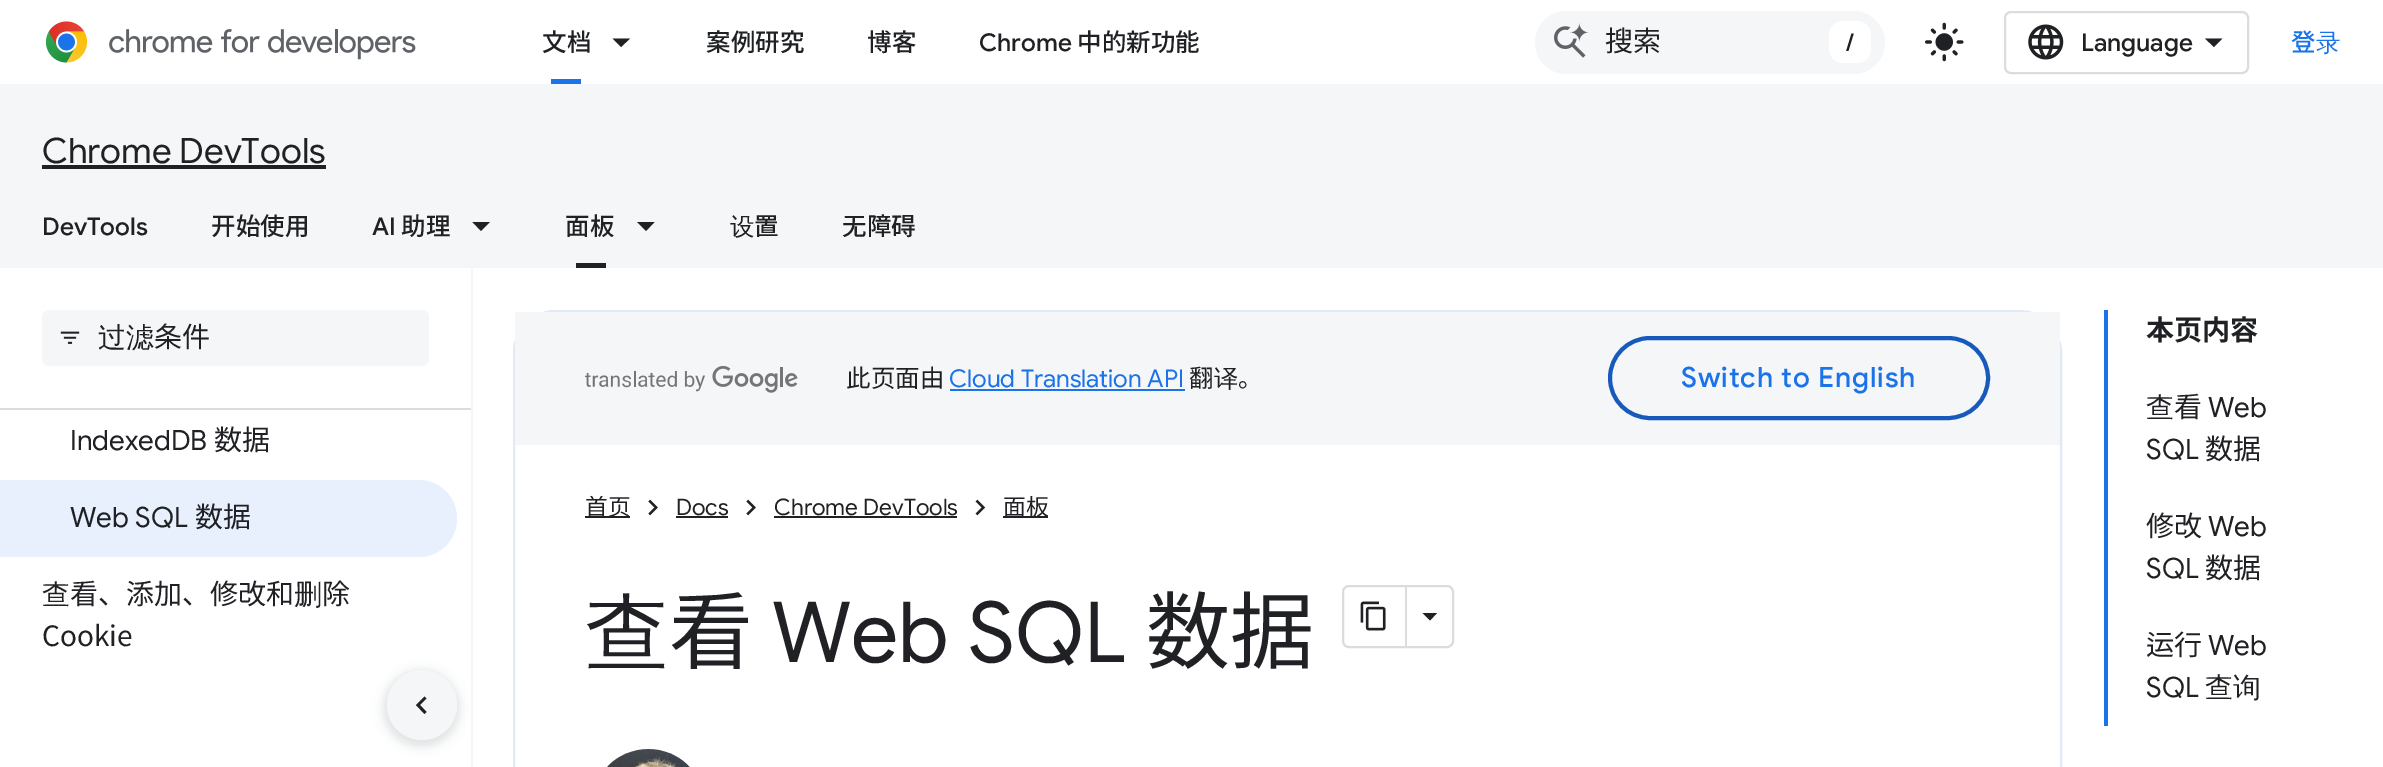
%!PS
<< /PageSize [2383 767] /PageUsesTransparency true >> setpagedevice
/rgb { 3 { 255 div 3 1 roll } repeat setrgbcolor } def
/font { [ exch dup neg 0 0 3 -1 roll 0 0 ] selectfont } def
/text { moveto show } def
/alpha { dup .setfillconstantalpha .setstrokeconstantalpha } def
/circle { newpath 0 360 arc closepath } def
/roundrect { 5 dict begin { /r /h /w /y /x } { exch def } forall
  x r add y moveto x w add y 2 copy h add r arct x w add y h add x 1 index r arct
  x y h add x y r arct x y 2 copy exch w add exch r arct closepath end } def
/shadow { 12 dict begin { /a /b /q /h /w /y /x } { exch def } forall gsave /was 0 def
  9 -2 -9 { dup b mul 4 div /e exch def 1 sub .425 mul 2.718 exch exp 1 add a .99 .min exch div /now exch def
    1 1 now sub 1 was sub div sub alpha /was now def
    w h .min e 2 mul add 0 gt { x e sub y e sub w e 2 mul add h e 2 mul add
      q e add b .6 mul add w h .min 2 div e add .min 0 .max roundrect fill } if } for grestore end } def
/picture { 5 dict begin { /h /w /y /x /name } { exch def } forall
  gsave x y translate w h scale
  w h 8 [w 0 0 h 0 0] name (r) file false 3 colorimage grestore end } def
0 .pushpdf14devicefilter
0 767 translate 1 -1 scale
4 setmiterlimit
255 255 255 rgb
0 0 2383 767 rectfill
(img_01.rgb) 45 21 371 42 picture
26 115 232 rgb
551 79 30 5 rectfill
32 33 36 rgb
612.5 38.5 moveto 17.5 0 rlineto -9 8.5 rlineto closepath fill
245 246 247 rgb
1535 11 350 63 31.5 roundrect fill
(img_02.rgb) 1554 23 35 35 picture
255 255 255 rgb
1829 21 42 42 14 roundrect fill
(img_03.rgb) 1925 22 39 40 picture
218 220 224 rgb
2 setlinewidth
2005 12 243 61 6 roundrect stroke
(img_04.rgb) 2028 24 36 36 picture
32 33 36 rgb
2214 47 moveto -9 -8.5 rlineto 17.5 0 rlineto closepath fill
245 246 247 rgb
0 84 2383 184 rectfill
32 33 36 rgb
42 165 284 4 rectfill
472.5 222 moveto 17.5 0 rlineto -9 9 rlineto closepath fill
576 263 30 5 rectfill
637 222 moveto 17.5 0 rlineto -8.5 9 rlineto closepath fill
218 220 224 rgb
0 408 471 2 rectfill
245 246 247 rgb
42 310 387 56 7 roundrect fill
(img_05.rgb) 60 331 20 13 picture
232 240 254 rgb
0 480 moveto 418.5 0 rlineto 21.5 0 38.5 17 38.5 38.5 rcurveto 0 21.5 -17 38.5 -38.5 38.5 rcurveto -418.5 0 rlineto closepath fill
245 246 247 rgb
471 268 2 499 rectfill
225 233 246 rgb
514 311 1547 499 41 roundrect stroke
245 246 247 rgb
515 312 1545 133 rectfill
(img_06.rgb) 585 366 213 27 picture
26 115 232 rgb
950 389 235 2 rectfill
24 90 188 rgb
4 setlinewidth
1610 338 378 80 40 roundrect stroke
32 33 36 rgb
585 516 45 2 rectfill
(img_07.rgb) 648 499 10 17 picture
676 516 52 2 rectfill
(img_07.rgb) 746 499 10 17 picture
774 516 183 2 rectfill
(img_08.rgb) 975 499 11 17 picture
1003 516 45 2 rectfill
218 220 224 rgb
2 setlinewidth
1343 586 110 61 6 roundrect stroke
1405 586 2 60 rectfill
(img_09.rgb) 1360 601 26 30 picture
32 33 36 rgb
1422.5 613 moveto 14.5 0 rlineto -7 7.5 rlineto closepath fill
(img_10.rgb) 607 749 83 18 picture
26 115 232 rgb
2104 310 4 416 rectfill
60 64 67 rgb
383 670 77 77 38.5 5 0.15 shadow
245 246 247 rgb
422 705 35 circle fill
32 33 36 rgb
426.5 698.5 moveto -6.5 6.5 rlineto 6.5 7 rlineto -2 2 rlineto -8.5 -9 rlineto 8.5 -8.5 rlineto closepath fill
/NotoSansJP-Medium 24.5 font
(文档) 542 51 text
(案例研究) 706 51 text
(博客) 867 51 text
/GoogleSans-Medium 24.5 font
(Chrome) 979 51 text
/NotoSansJP-Medium 24.5 font
(中的新功能) 1077 51 text
/NotoSansJP-Regular 28 font
(搜索) 1605 51 text
/GoogleSans-Medium 24.5 font
(/) 1846 51 text
(Language) 2081 51 text
/NotoSansJP-Medium 24.5 font
26 115 232 rgb
2291 51 moveto 0.9 0 (登) ashow
/WenQuanYiZenHei-Medium 24.5 font
2316 51 moveto 0.9 0 (录) ashow
/GoogleSans-Regular 35 font
32 33 36 rgb
(Chrome DevTools) 42 163 text
/GoogleSans-Medium 24.5 font
(DevTools) 42 235 text
/NotoSansJP-Medium 24.5 font
(开始使用) 211 235 text
/GoogleSans-Medium 24.5 font
(AI) 372 235 text
/NotoSansJP-Medium 24.5 font
(助理) 401 235 text
(面板) 565 235 text
/WenQuanYiZenHei-Medium 24.5 font
(设) 730 235 text
/NotoSansJP-Medium 24.5 font
(置) 754 235 text
(无障碍) 842 235 text
/WenQuanYiZenHei-Medium 28 font
(过滤) 98 347 text
/NotoSansJP-Regular 28 font
(条件) 154 347 text
/GoogleSans-Regular 28 font
(IndexedDB) 70 450 text
/NotoSansJP-Regular 28 font
(数据) 214 450 text
/GoogleSans-Regular 28 font
(Web SQL) 70 527 text
/NotoSansJP-Regular 28 font
(数据) 195 527 text
/WenQuanYiZenHei-Medium 28 font
(查) 42 604 text
/NotoSansJP-Regular 28 font
(看、添加、修改和) 70 604 text
/WenQuanYiZenHei-Medium 28 font
(删) 294 604 text
/NotoSansJP-Regular 28 font
(除) 322 604 text
(Cookie) 42 646 text
/NotoSansJP-Regular 24.5 font
(此页面由) 846 387 text
/GoogleSans-Regular 24.5 font
26 115 232 rgb
(Cloud Translation API) 949 387 text
/NotoSansJP-Regular 24.5 font
32 33 36 rgb
(翻) 1189 387 text
/WenQuanYiZenHei-Medium 24.5 font
(译) 1214 387 text
/NotoSansJP-Regular 24.5 font
(。) 1238 387 text
/GoogleSans-Medium 28 font
26 115 232 rgb
1681 387 moveto 0.9 0 (Switch to English) ashow
/NotoSansJP-Regular 22.75 font
32 33 36 rgb
(首页) 585 515 text
/GoogleSans-Regular 22.75 font
(Docs) 676 515 text
(Chrome DevTools) 774 515 text
/NotoSansJP-Regular 22.75 font
(面板) 1003 515 text
/WenQuanYiZenHei-Medium 84 font
(查) 585 662 text
/NotoSansJP-Regular 84 font
(看) 669 662 text
/GoogleSans-Regular 84 font
(Web SQL) 772 662 text
/NotoSansJP-Regular 84 font
(数据) 1146 662 text
/NotoSansJP-Bold 28 font
(本页内容) 2146 340 text
/WenQuanYiZenHei-Medium 28 font
(查) 2146 417 text
/NotoSansJP-Regular 28 font
(看) 2174 417 text
/GoogleSans-Regular 28 font
(Web) 2208 417 text
(SQL) 2146 459 text
/NotoSansJP-Regular 28 font
(数据) 2205 459 text
(修改) 2146 536 text
/GoogleSans-Regular 28 font
(Web) 2208 536 text
(SQL) 2146 578 text
/NotoSansJP-Regular 28 font
(数据) 2205 578 text
(运行) 2146 655 text
/GoogleSans-Regular 28 font
(Web) 2208 655 text
(SQL) 2146 697 text
/WenQuanYiZenHei-Medium 28 font
(查询) 2205 697 text
.poppdf14devicefilter showpage
